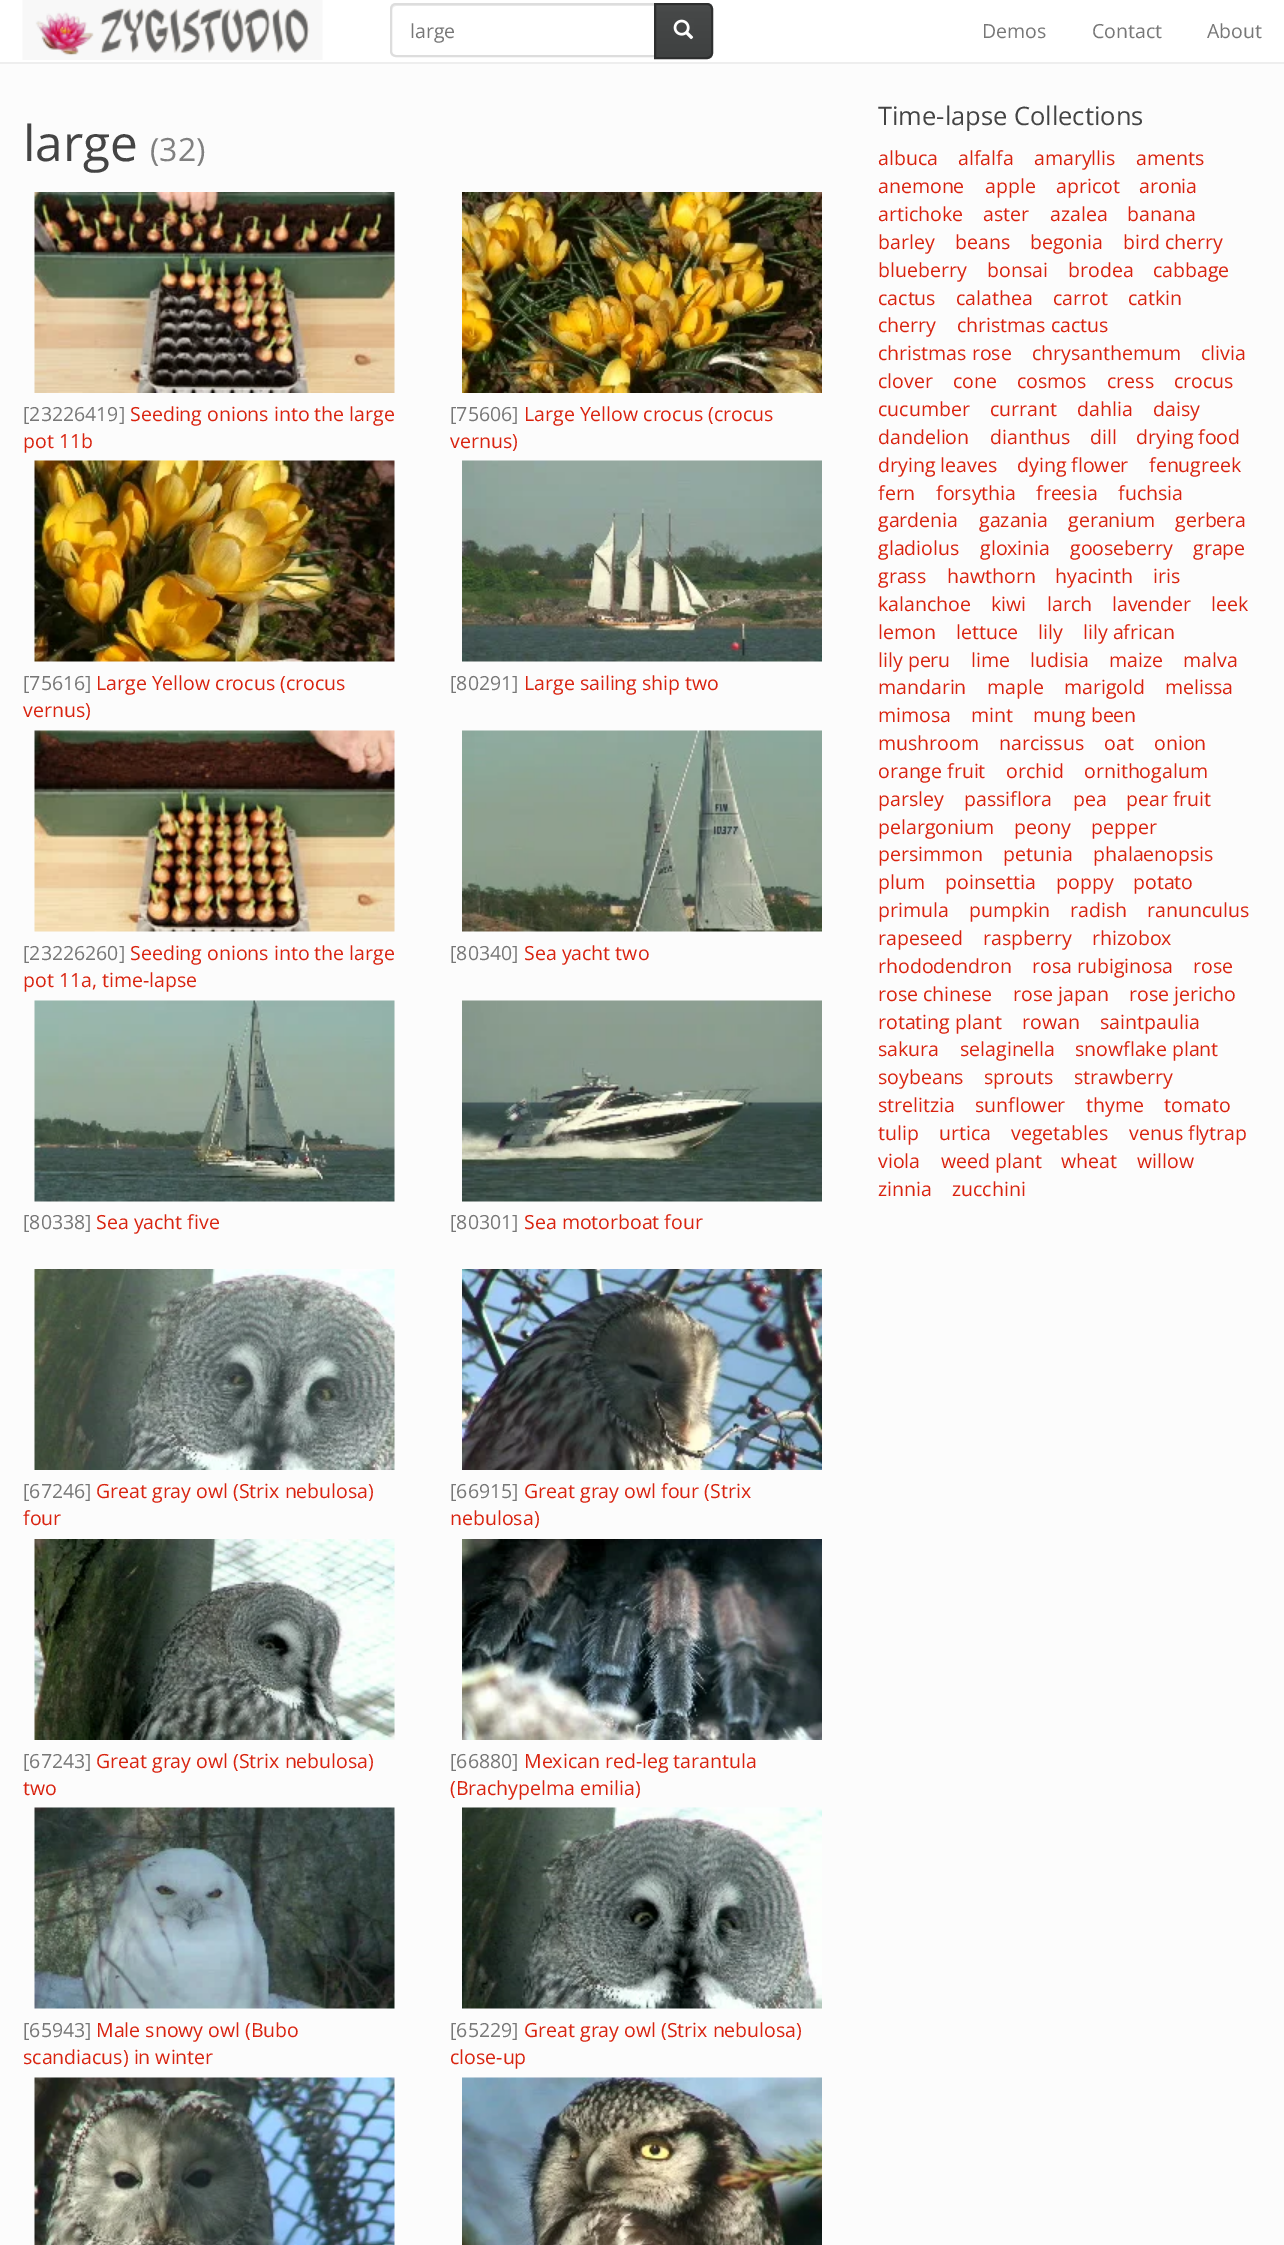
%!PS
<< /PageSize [1284 2245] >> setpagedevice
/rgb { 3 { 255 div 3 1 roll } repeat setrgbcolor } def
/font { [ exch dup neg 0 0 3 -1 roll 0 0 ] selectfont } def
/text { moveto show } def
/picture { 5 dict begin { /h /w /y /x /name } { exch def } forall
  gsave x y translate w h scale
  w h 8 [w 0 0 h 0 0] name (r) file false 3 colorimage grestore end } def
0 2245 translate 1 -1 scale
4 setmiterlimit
252 252 252 rgb
0 0 1284 2245 rectfill
255 255 255 rgb
0 0 1284 62 rectfill
238 238 238 rgb
0 62 1284 2 rectfill
(img_01.rgb) 22 0 301 60 picture
236 236 236 rgb
396 6 moveto 258 0 rlineto 0 -1 rlineto -257 0 rlineto -3 0 -5 2 -5 5 rcurveto 0 -2 2 -4 4 -4 rcurveto closepath fill
221 221 221 rgb
2 setlinewidth
396 4 moveto 259 0 rlineto 0 52 rlineto -259 0 rlineto -3 0 -5 -2 -5 -5 rcurveto 0 -42 rlineto 0 -3 2 -5 5 -5 rcurveto closepath stroke
gsave 656 5 moveto 55 0 rlineto 0 52 rlineto -55 0 rlineto closepath clip newpath
<< /ShadingType 2 /ColorSpace /DeviceRGB /Coords [683 4.5 683 57] /Extend [true true] /Function << /FunctionType 3 /Domain [0 1] /Functions [<< /FunctionType 2 /Domain [0 1] /C0 [0.31 0.318 0.318] /C1 [0.278 0.286 0.286] /N 1 >> << /FunctionType 2 /Domain [0 1] /C0 [0.278 0.286 0.286] /C1 [0.247 0.255 0.255] /N 1 >>] /Bounds [0.06] /Encode [0 1 0 1] >> >> shfill grestore
46 47 47 rgb
655 4 moveto 52 0 rlineto 3 0 5 2 5 5 rcurveto 0 44 rlineto 0 3 -2 5 -5 5 rcurveto -52 0 rlineto closepath stroke
(img_02.rgb) 673 19 21 21 picture
(img_03.rgb) 34 192 361 201 picture
(img_04.rgb) 462 192 360 201 picture
(img_05.rgb) 34 460 361 202 picture
(img_06.rgb) 462 460 360 202 picture
(img_07.rgb) 34 730 361 202 picture
(img_08.rgb) 462 730 360 202 picture
(img_09.rgb) 34 1000 361 202 picture
(img_10.rgb) 462 1000 360 202 picture
(img_11.rgb) 34 1269 361 201 picture
(img_12.rgb) 462 1269 360 201 picture
(img_13.rgb) 34 1539 361 201 picture
(img_14.rgb) 462 1539 360 201 picture
(img_15.rgb) 34 1807 361 202 picture
(img_16.rgb) 462 1807 360 202 picture
(img_17.rgb) 34 2077 361 168 picture
(img_18.rgb) 462 2077 360 168 picture
/OpenSans-Regular 19.5 font
119 119 119 rgb
(large) 410 38 text
(Demos) 982 38 text
(Contact) 1092 38 text
(About) 1207 38 text
/OpenSans-Regular 49.5 font
68 68 68 rgb
(large) 23 161 text
/OpenSans-Regular 32 font
128 128 128 rgb
(\(32\)) 150 161 text
/OpenSans-Regular 19.5 font
119 119 119 rgb
([23226419]) 23 421 text
217 35 15 rgb
(Seeding onions into the large) 130 421 text
(pot 11b) 23 448 text
119 119 119 rgb
([75606]) 450 421 text
217 35 15 rgb
(Large Yellow crocus \(crocus) 524 421 text
(vernus\)) 450 448 text
119 119 119 rgb
([75616]) 23 690 text
217 35 15 rgb
(Large Yellow crocus \(crocus) 96 690 text
(vernus\)) 23 717 text
119 119 119 rgb
([80291]) 450 690 text
217 35 15 rgb
(Large sailing ship two) 524 690 text
119 119 119 rgb
([23226260]) 23 960 text
217 35 15 rgb
(Seeding onions into the large) 130 960 text
(pot 11a, time-lapse) 23 987 text
119 119 119 rgb
([80340]) 450 960 text
217 35 15 rgb
(Sea yacht two) 524 960 text
119 119 119 rgb
([80338]) 23 1229 text
217 35 15 rgb
(Sea yacht five) 96 1229 text
119 119 119 rgb
([80301]) 450 1229 text
217 35 15 rgb
(Sea motorboat four) 524 1229 text
119 119 119 rgb
([67246]) 23 1498 text
217 35 15 rgb
(Great gray owl \(Strix nebulosa\)) 96 1498 text
(four) 23 1525 text
119 119 119 rgb
([66915]) 450 1498 text
217 35 15 rgb
(Great gray owl four \(Strix) 524 1498 text
(nebulosa\)) 450 1525 text
119 119 119 rgb
([67243]) 23 1768 text
217 35 15 rgb
(Great gray owl \(Strix nebulosa\)) 96 1768 text
(two) 23 1795 text
119 119 119 rgb
([66880]) 450 1768 text
217 35 15 rgb
(Mexican red-leg tarantula) 524 1768 text
(\(Brachypelma emilia\)) 450 1795 text
119 119 119 rgb
([65943]) 23 2037 text
217 35 15 rgb
(Male snowy owl \(Bubo) 96 2037 text
(scandiacus\) in winter) 23 2064 text
119 119 119 rgb
([65229]) 450 2037 text
217 35 15 rgb
(Great gray owl \(Strix nebulosa\)) 524 2037 text
(close-up) 450 2064 text
/OpenSans-Regular 25.5 font
68 68 68 rgb
(Time-lapse Collections) 878 125 text
/OpenSans-Regular 19.5 font
217 35 15 rgb
(albuca) 878 165 text
(alfalfa) 958 165 text
(amaryllis) 1034 165 text
(aments) 1136 165 text
(anemone) 878 193 text
(apple) 985 193 text
(apricot) 1056 193 text
(aronia) 1139 193 text
(artichoke) 878 221 text
(aster) 983 221 text
(azalea) 1050 221 text
(banana) 1127 221 text
(barley) 878 249 text
(beans) 955 249 text
(begonia) 1030 249 text
(bird cherry) 1123 249 text
(blueberry) 878 277 text
(bonsai) 987 277 text
(brodea) 1068 277 text
(cabbage) 1153 277 text
(cactus) 878 305 text
(calathea) 956 305 text
(carrot) 1053 305 text
(catkin) 1128 305 text
(cherry) 878 332 text
(christmas cactus) 957 332 text
(christmas rose) 878 360 text
(chrysanthemum) 1032 360 text
(clivia) 1201 360 text
(clover) 878 388 text
(cone) 953 388 text
(cosmos) 1017 388 text
(cress) 1107 388 text
(crocus) 1174 388 text
(cucumber) 878 416 text
(currant) 990 416 text
(dahlia) 1077 416 text
(daisy) 1153 416 text
(dandelion) 878 444 text
(dianthus) 990 444 text
(dill) 1090 444 text
(drying food) 1136 444 text
(drying leaves) 878 472 text
(dying flower) 1017 472 text
(fenugreek) 1149 472 text
(fern) 878 500 text
(forsythia) 936 500 text
(freesia) 1036 500 text
(fuchsia) 1118 500 text
(gardenia) 878 527 text
(gazania) 979 527 text
(geranium) 1068 527 text
(gerbera) 1175 527 text
(gladiolus) 878 555 text
(gloxinia) 980 555 text
(gooseberry) 1070 555 text
(grape) 1193 555 text
(grass) 878 583 text
(hawthorn) 947 583 text
(hyacinth) 1055 583 text
(iris) 1153 583 text
(kalanchoe) 878 611 text
(kiwi) 991 611 text
(larch) 1047 611 text
(lavender) 1112 611 text
(leek) 1211 611 text
(lemon) 878 639 text
(lettuce) 956 639 text
(lily) 1038 639 text
(lily african) 1083 639 text
(lily peru) 878 667 text
(lime) 971 667 text
(ludisia) 1030 667 text
(maize) 1109 667 text
(malva) 1183 667 text
(mandarin) 878 694 text
(maple) 987 694 text
(marigold) 1064 694 text
(melissa) 1165 694 text
(mimosa) 878 722 text
(mint) 971 722 text
(mung been) 1033 722 text
(mushroom) 878 750 text
(narcissus) 999 750 text
(oat) 1104 750 text
(onion) 1154 750 text
(orange fruit) 878 778 text
(orchid) 1006 778 text
(ornithogalum) 1084 778 text
(parsley) 878 806 text
(passiflora) 964 806 text
(pea) 1073 806 text
(pear fruit) 1126 806 text
(pelargonium) 878 834 text
(peony) 1014 834 text
(pepper) 1091 834 text
(persimmon) 878 861 text
(petunia) 1003 861 text
(phalaenopsis) 1093 861 text
(plum) 878 889 text
(poinsettia) 945 889 text
(poppy) 1056 889 text
(potato) 1133 889 text
(primula) 878 917 text
(pumpkin) 969 917 text
(radish) 1070 917 text
(ranunculus) 1147 917 text
(rapeseed) 878 945 text
(raspberry) 983 945 text
(rhizobox) 1092 945 text
(rhododendron) 878 973 text
(rosa rubiginosa) 1032 973 text
(rose) 1193 973 text
(rose chinese) 878 1001 text
(rose japan) 1013 1001 text
(rose jericho) 1129 1001 text
(rotating plant) 878 1029 text
(rowan) 1022 1029 text
(saintpaulia) 1100 1029 text
(sakura) 878 1056 text
(selaginella) 960 1056 text
(snowflake plant) 1075 1056 text
(soybeans) 878 1084 text
(sprouts) 984 1084 text
(strawberry) 1074 1084 text
(strelitzia) 878 1112 text
(sunflower) 975 1112 text
(thyme) 1086 1112 text
(tomato) 1164 1112 text
(tulip) 878 1140 text
(urtica) 939 1140 text
(vegetables) 1011 1140 text
(venus flytrap) 1129 1140 text
(viola) 878 1168 text
(weed plant) 941 1168 text
(wheat) 1061 1168 text
(willow) 1137 1168 text
(zinnia) 878 1196 text
(zucchini) 952 1196 text
showpage
